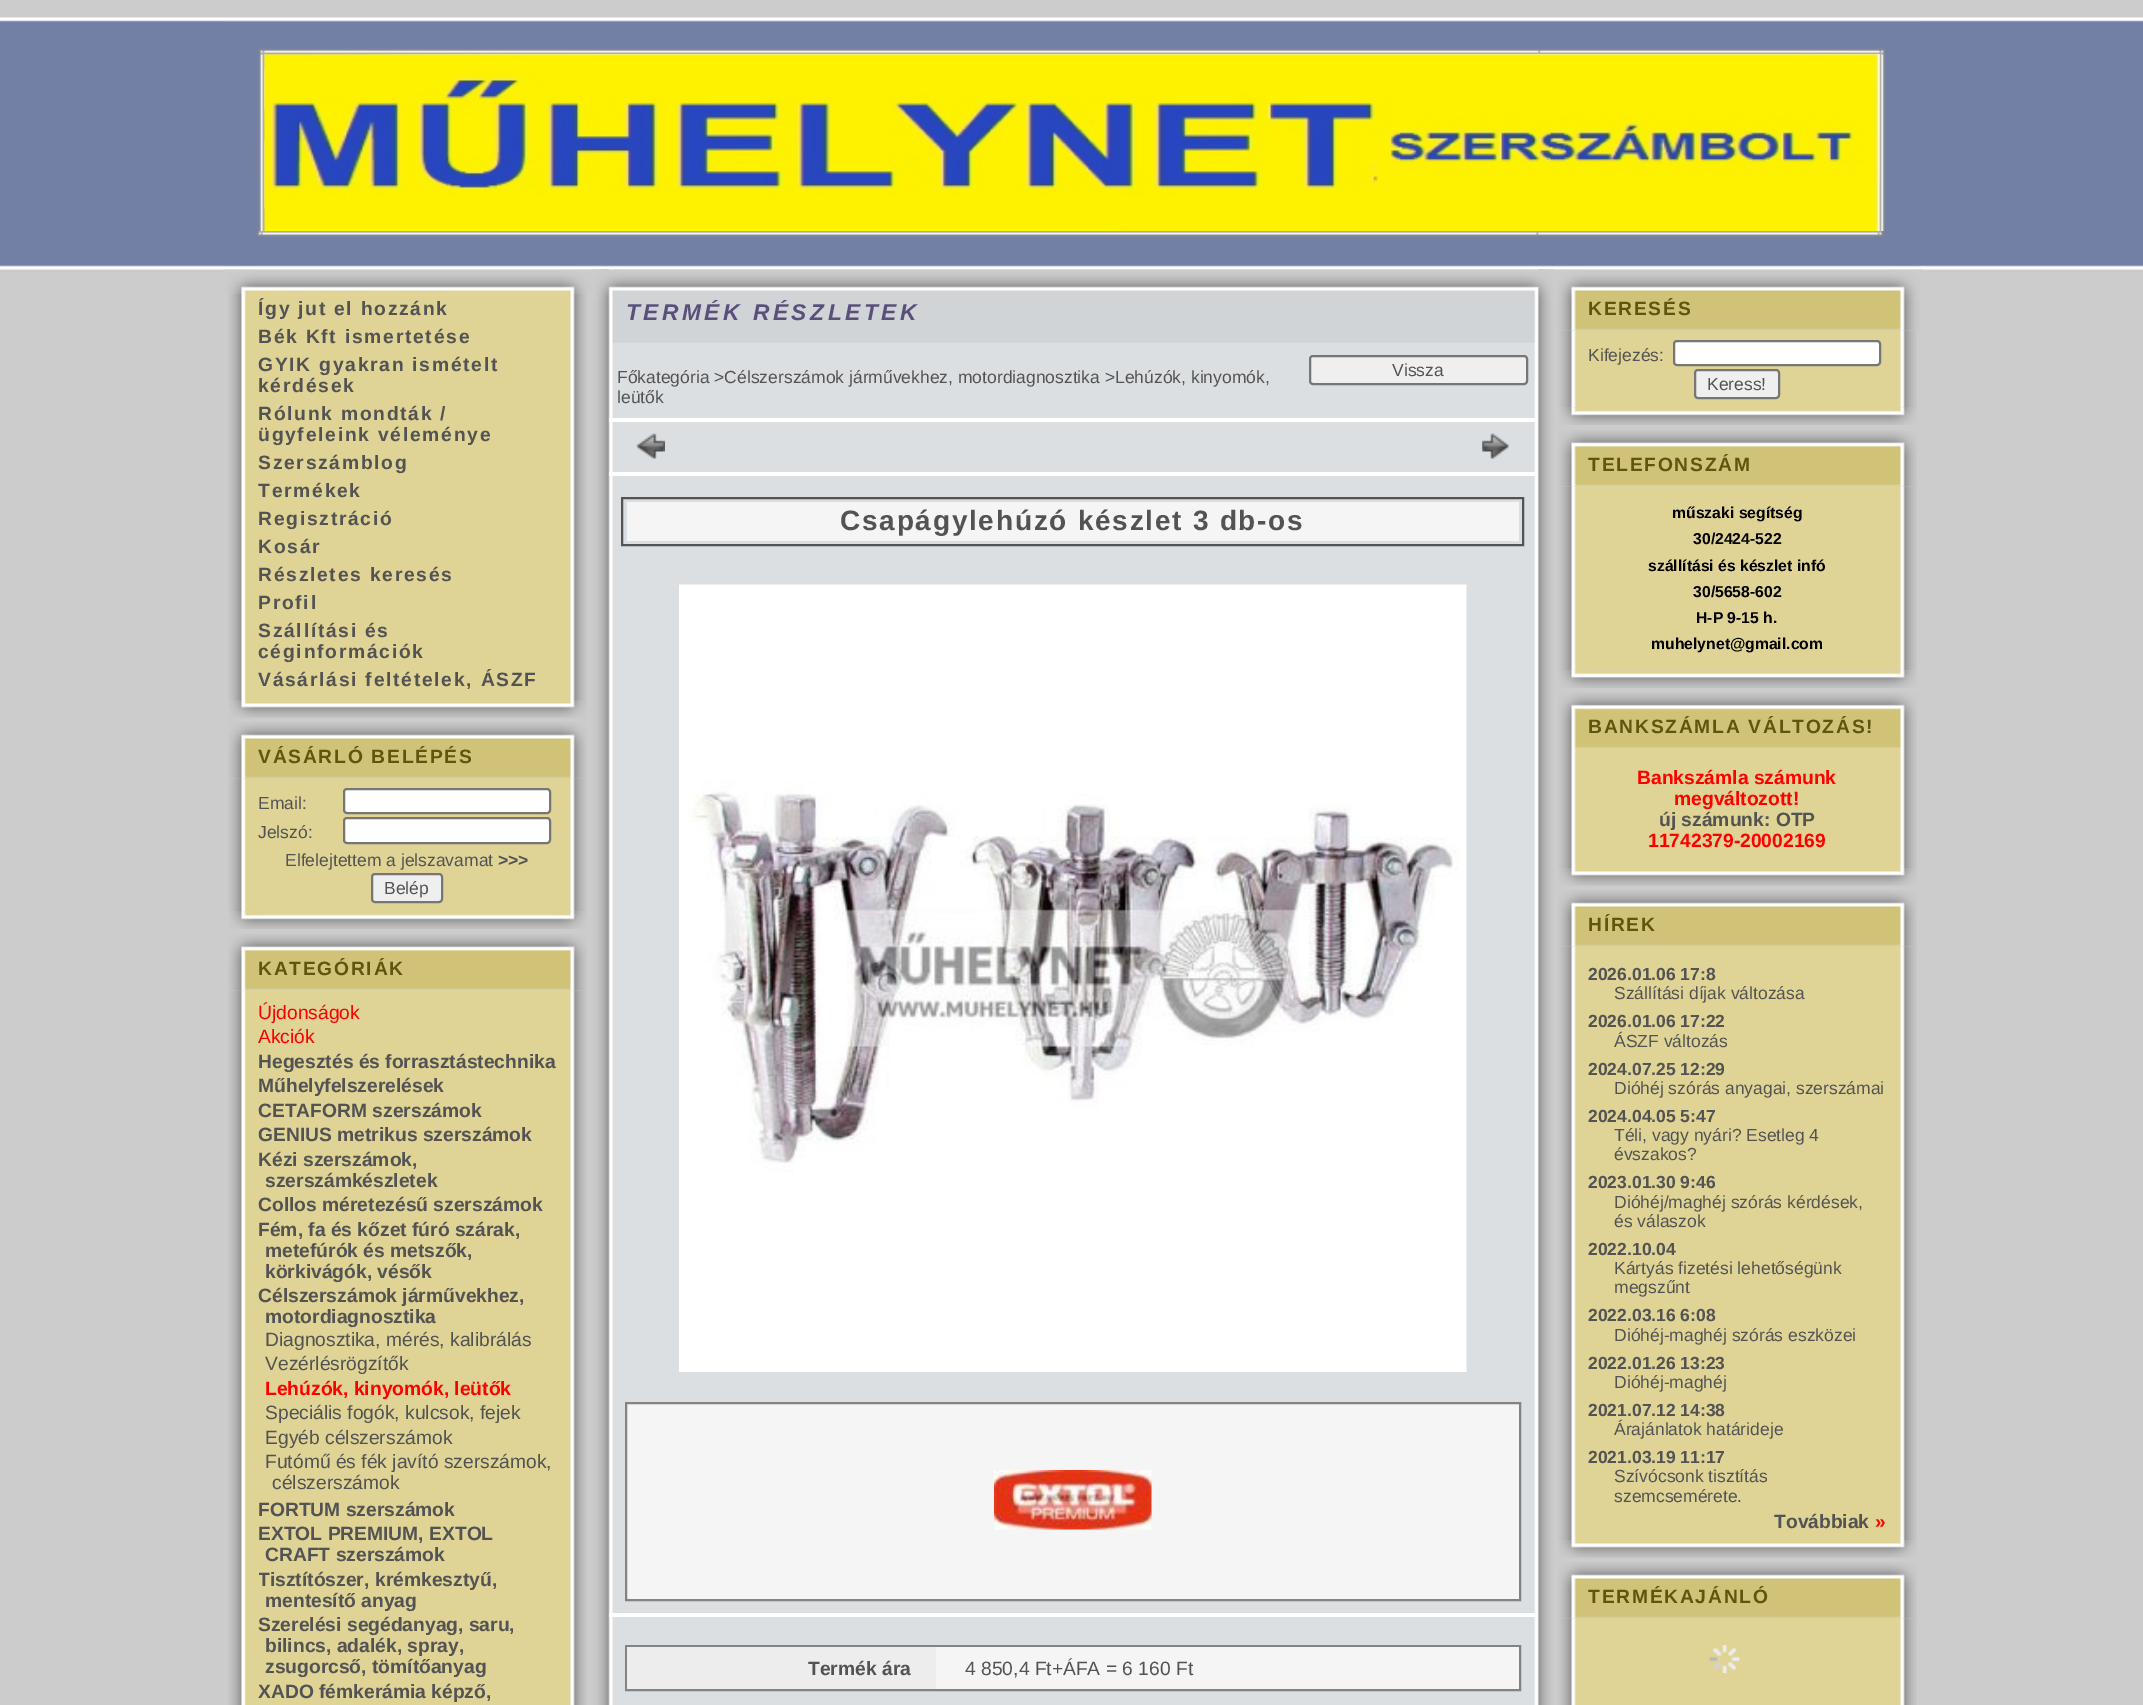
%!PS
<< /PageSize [2143 1705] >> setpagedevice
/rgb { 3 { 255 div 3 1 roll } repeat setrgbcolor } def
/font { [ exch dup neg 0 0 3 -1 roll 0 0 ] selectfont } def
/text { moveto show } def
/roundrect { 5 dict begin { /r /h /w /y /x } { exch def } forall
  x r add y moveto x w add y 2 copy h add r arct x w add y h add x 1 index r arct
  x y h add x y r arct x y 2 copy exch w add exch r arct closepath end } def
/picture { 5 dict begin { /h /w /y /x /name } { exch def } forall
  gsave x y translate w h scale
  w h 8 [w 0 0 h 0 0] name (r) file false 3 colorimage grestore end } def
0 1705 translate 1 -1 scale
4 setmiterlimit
204 204 204 rgb
0 0 2143 1705 rectfill
(img_01.rgb) 0 17 2143 253 picture
(img_02.rgb) 224 21 1697 34 picture
(img_03.rgb) 258 54 1627 177 picture
264 54 1616 177 rectfill
(img_04.rgb) 264 54 1616 177 picture
(img_05.rgb) 264 54 1616 177 picture
(img_06.rgb) 224 231 1696 39 picture
(img_07.rgb) 591 269 963 1436 picture
(img_08.rgb) 224 269 368 25 picture
(img_09.rgb) 228 294 359 406 picture
(img_10.rgb) 229 700 358 18 picture
(img_11.rgb) 228 722 359 57 picture
(img_13.rgb) 229 911 358 18 picture
(img_12.rgb) 228 779 359 133 picture
255 255 255 rgb
344 789 206 24 3 roundrect gsave fill grestore
118 118 118 rgb
2 setlinewidth
stroke
255 255 255 rgb
344 818 206 25 3 roundrect gsave fill grestore
118 118 118 rgb
stroke
239 239 239 rgb
372 874 70 28 3 roundrect gsave fill grestore
118 118 118 rgb
stroke
(img_14.rgb) 228 934 359 57 picture
(img_15.rgb) 228 990 359 715 picture
(img_16.rgb) 591 269 963 74 picture
239 239 239 rgb
1310 356 217 28 3 roundrect gsave fill grestore
118 118 118 rgb
stroke
255 255 255 rgb
609 418 927 4 rectfill
(img_17.rgb) 636 433 29 26 picture
(img_18.rgb) 1482 433 27 26 picture
609 472 927 4 rectfill
83 83 83 rgb
622 498 901 47 rectstroke
245 245 245 rgb
627 502 892 39 rectfill
(img_19.rgb) 679 584 788 788 picture
626 1403 moveto 894 0 rlineto 0 197 rlineto -894 0 rlineto closepath gsave fill grestore
131 131 131 rgb
stroke
(img_20.rgb) 994 1470 158 60 picture
255 255 255 rgb
609 1613 927 4 rectfill
131 131 131 rgb
626 1646 894 44 rectstroke
237 237 237 rgb
627 1647 309 42 rectfill
245 245 245 rgb
936 1647 583 42 rectfill
(img_21.rgb) 1554 269 368 62 picture
(img_23.rgb) 1559 407 358 18 picture
(img_22.rgb) 1558 331 359 77 picture
255 255 255 rgb
1674 341 206 24 3 roundrect gsave fill grestore
118 118 118 rgb
stroke
239 239 239 rgb
1695 370 84 28 3 roundrect gsave fill grestore
118 118 118 rgb
stroke
(img_24.rgb) 1558 430 359 57 picture
(img_26.rgb) 1559 670 358 18 picture
(img_25.rgb) 1558 486 359 185 picture
(img_27.rgb) 1558 692 359 57 picture
(img_28.rgb) 1558 749 359 119 picture
(img_29.rgb) 1559 868 358 18 picture
(img_30.rgb) 1558 890 359 57 picture
(img_31.rgb) 1558 947 359 593 picture
(img_29.rgb) 1559 1540 358 18 picture
(img_30.rgb) 1558 1562 359 57 picture
(img_32.rgb) 1558 1619 359 86 picture
(img_33.rgb) 1709 1645 31 28 picture
/LiberationSans-Bold 19.25 font
83 83 83 rgb
258 315 moveto 1.75 0 (Így jut el hozzánk) ashow
258 343 moveto 1.75 0 (Bék Kft ismertetése) ashow
258 371 moveto 1.75 0 (GYIK gyakran ismételt) ashow
258 392 moveto 1.75 0 (kérdések) ashow
258 420 moveto 1.75 0 (Rólunk mondták /) ashow
258 441 moveto 1.75 0 (ügyfeleink véleménye) ashow
258 469 moveto 1.75 0 (Szerszámblog) ashow
258 497 moveto 1.75 0 (Termékek) ashow
258 525 moveto 1.75 0 (Regisztráció) ashow
258 553 moveto 1.75 0 (Kosár) ashow
258 581 moveto 1.75 0 (Részletes keresés) ashow
258 609 moveto 1.75 0 (Profil) ashow
258 637 moveto 1.75 0 (Szállítási és) ashow
258 658 moveto 1.75 0 (céginformációk) ashow
258 686 moveto 1.75 0 (Vásárlási feltételek, ÁSZF) ashow
96 84 15 rgb
258 763 moveto 1.75 0 (VÁSÁRLÓ BELÉPÉS) ashow
/LiberationSans-Regular 17.5 font
83 83 83 rgb
(Email:) 258 809 text
(Jelszó:) 258 838 text
(Elfelejtettem a jelszavamat) 285 866 text
/LiberationSans-Bold 17.5 font
(>>>) 498 866 text
/LiberationSans-Regular 17.5 font
(Belép) 384 894 text
/LiberationSans-Bold 19.25 font
96 84 15 rgb
258 975 moveto 1.75 0 (KATEGÓRIÁK) ashow
/LiberationSans-Regular 19.25 font
255 0 0 rgb
(Újdonságok) 258 1019 text
(Akciók) 258 1043 text
/LiberationSans-Bold 19.25 font
83 83 83 rgb
(Hegesztés és forrasztástechnika) 258 1068 text
(Műhelyfelszerelések) 258 1092 text
(CETAFORM szerszámok) 258 1117 text
(GENIUS metrikus szerszámok) 258 1141 text
(Kézi szerszámok,) 258 1166 text
(szerszámkészletek) 265 1187 text
(Collos méretezésű szerszámok) 258 1211 text
(Fém, fa és kőzet fúró szárak,) 258 1236 text
(metefúrók és metszők,) 265 1257 text
(körkivágók, vésők) 265 1278 text
(Célszerszámok járművekhez,) 258 1302 text
(motordiagnosztika) 265 1323 text
/LiberationSans-Regular 19.25 font
(Diagnosztika, mérés, kalibrálás) 265 1346 text
(Vezérlésrögzítők) 265 1370 text
/LiberationSans-Bold 19.25 font
255 0 0 rgb
(Lehúzók, kinyomók, leütők) 265 1395 text
/LiberationSans-Regular 19.25 font
83 83 83 rgb
(Speciális fogók, kulcsok, fejek) 265 1419 text
(Egyéb célszerszámok) 265 1444 text
(Futómű és fék javító szerszámok,) 265 1468 text
(célszerszámok) 272 1489 text
/LiberationSans-Bold 19.25 font
(FORTUM szerszámok) 258 1516 text
(EXTOL PREMIUM, EXTOL) 258 1540 text
(CRAFT szerszámok) 265 1561 text
gsave
259 999 298 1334 rectclip
(Tisztítószer,) 258 1586 text
grestore
(krémkesztyű,) 375 1586 text
(mentesítő anyag) 265 1607 text
(Szerelési segédanyag, saru,) 258 1631 text
(bilincs, adalék, spray,) 265 1652 text
(zsugorcső, tömítőanyag) 265 1673 text
(XADO fémkerámia képző,) 258 1698 text
/LiberationSans-BoldItalic 22.75 font
90 79 123 rgb
626 320 moveto 3.5 0 (TERMÉK RÉSZLETEK) ashow
/LiberationSans-Regular 17.5 font
83 83 83 rgb
(Főkategória >Célszerszámok járművekhez, motordiagnosztika >Lehúzók, kinyomók,) 617 383 text
(leütők) 617 403 text
(Vissza) 1392 376 text
/LiberationSans-Bold 28 font
840 530 moveto 1.75 0 (Csapágylehúzó készlet 3 db-os) ashow
/LiberationSans-Bold 19.25 font
(Termék ára) 808 1675 text
/LiberationSans-Regular 19.25 font
(4 850,4 Ft+ÁFA = 6 160 Ft) 965 1675 text
/LiberationSans-Bold 19.25 font
96 84 15 rgb
1588 315 moveto 1.75 0 (KERESÉS) ashow
/LiberationSans-Regular 17.5 font
83 83 83 rgb
(Kifejezés:) 1588 361 text
(Keress!) 1707 390 text
/LiberationSans-Bold 19.25 font
96 84 15 rgb
1588 471 moveto 1.75 0 (TELEFONSZÁM) ashow
/LiberationSans-Bold 15.75 font
0 0 0 rgb
(műszaki segítség) 1672 518 text
(30/2424-522) 1693 544 text
(szállítási és készlet infó) 1648 571 text
(30/5658-602) 1693 597 text
(H-P 9-15 h.) 1696 623 text
(muhelynet@gmail.com) 1651 649 text
/LiberationSans-Bold 19.25 font
96 84 15 rgb
1588 733 moveto 1.75 0 (BANKSZÁMLA VÁLTOZÁS!) ashow
255 0 0 rgb
(Bankszámla számunk) 1637 784 text
(megváltozott!) 1674 805 text
83 83 83 rgb
(új számunk: OTP) 1659 826 text
255 0 0 rgb
(11742379-20002169) 1648 847 text
96 84 15 rgb
1588 931 moveto 1.75 0 (HÍREK) ashow
/LiberationSans-Bold 17.5 font
83 83 83 rgb
(2026.01.06 17:8) 1588 980 text
/LiberationSans-Regular 17.5 font
(Szállítási díjak változása) 1614 999 text
/LiberationSans-Bold 17.5 font
(2026.01.06 17:22) 1588 1027 text
/LiberationSans-Regular 17.5 font
(ÁSZF változás) 1614 1047 text
/LiberationSans-Bold 17.5 font
(2024.07.25 12:29) 1588 1075 text
/LiberationSans-Regular 17.5 font
(Dióhéj szórás anyagai, szerszámai) 1614 1094 text
/LiberationSans-Bold 17.5 font
(2024.04.05 5:47) 1588 1122 text
/LiberationSans-Regular 17.5 font
(Téli, vagy nyári? Esetleg 4) 1614 1141 text
(évszakos?) 1614 1160 text
/LiberationSans-Bold 17.5 font
(2023.01.30 9:46) 1588 1188 text
/LiberationSans-Regular 17.5 font
(Dióhéj/maghéj szórás kérdések,) 1614 1208 text
(és válaszok) 1614 1227 text
/LiberationSans-Bold 17.5 font
(2022.10.04) 1588 1255 text
/LiberationSans-Regular 17.5 font
(Kártyás fizetési lehetőségünk) 1614 1274 text
(megszűnt) 1614 1293 text
/LiberationSans-Bold 17.5 font
(2022.03.16 6:08) 1588 1321 text
/LiberationSans-Regular 17.5 font
(Dióhéj-maghéj szórás eszközei) 1614 1341 text
/LiberationSans-Bold 17.5 font
(2022.01.26 13:23) 1588 1369 text
/LiberationSans-Regular 17.5 font
(Dióhéj-maghéj) 1614 1388 text
/LiberationSans-Bold 17.5 font
(2021.07.12 14:38) 1588 1416 text
/LiberationSans-Regular 17.5 font
(Árajánlatok határideje) 1614 1435 text
/LiberationSans-Bold 17.5 font
(2021.03.19 11:17) 1588 1463 text
/LiberationSans-Regular 17.5 font
(Szívócsonk tisztítás) 1614 1482 text
(szemcsemérete.) 1614 1502 text
/LiberationSans-Bold 19.25 font
(Továbbiak) 1774 1528 text
255 0 0 rgb
(») 1875 1528 text
96 84 15 rgb
1588 1603 moveto 1.75 0 (TERMÉKAJÁNLÓ) ashow
showpage
